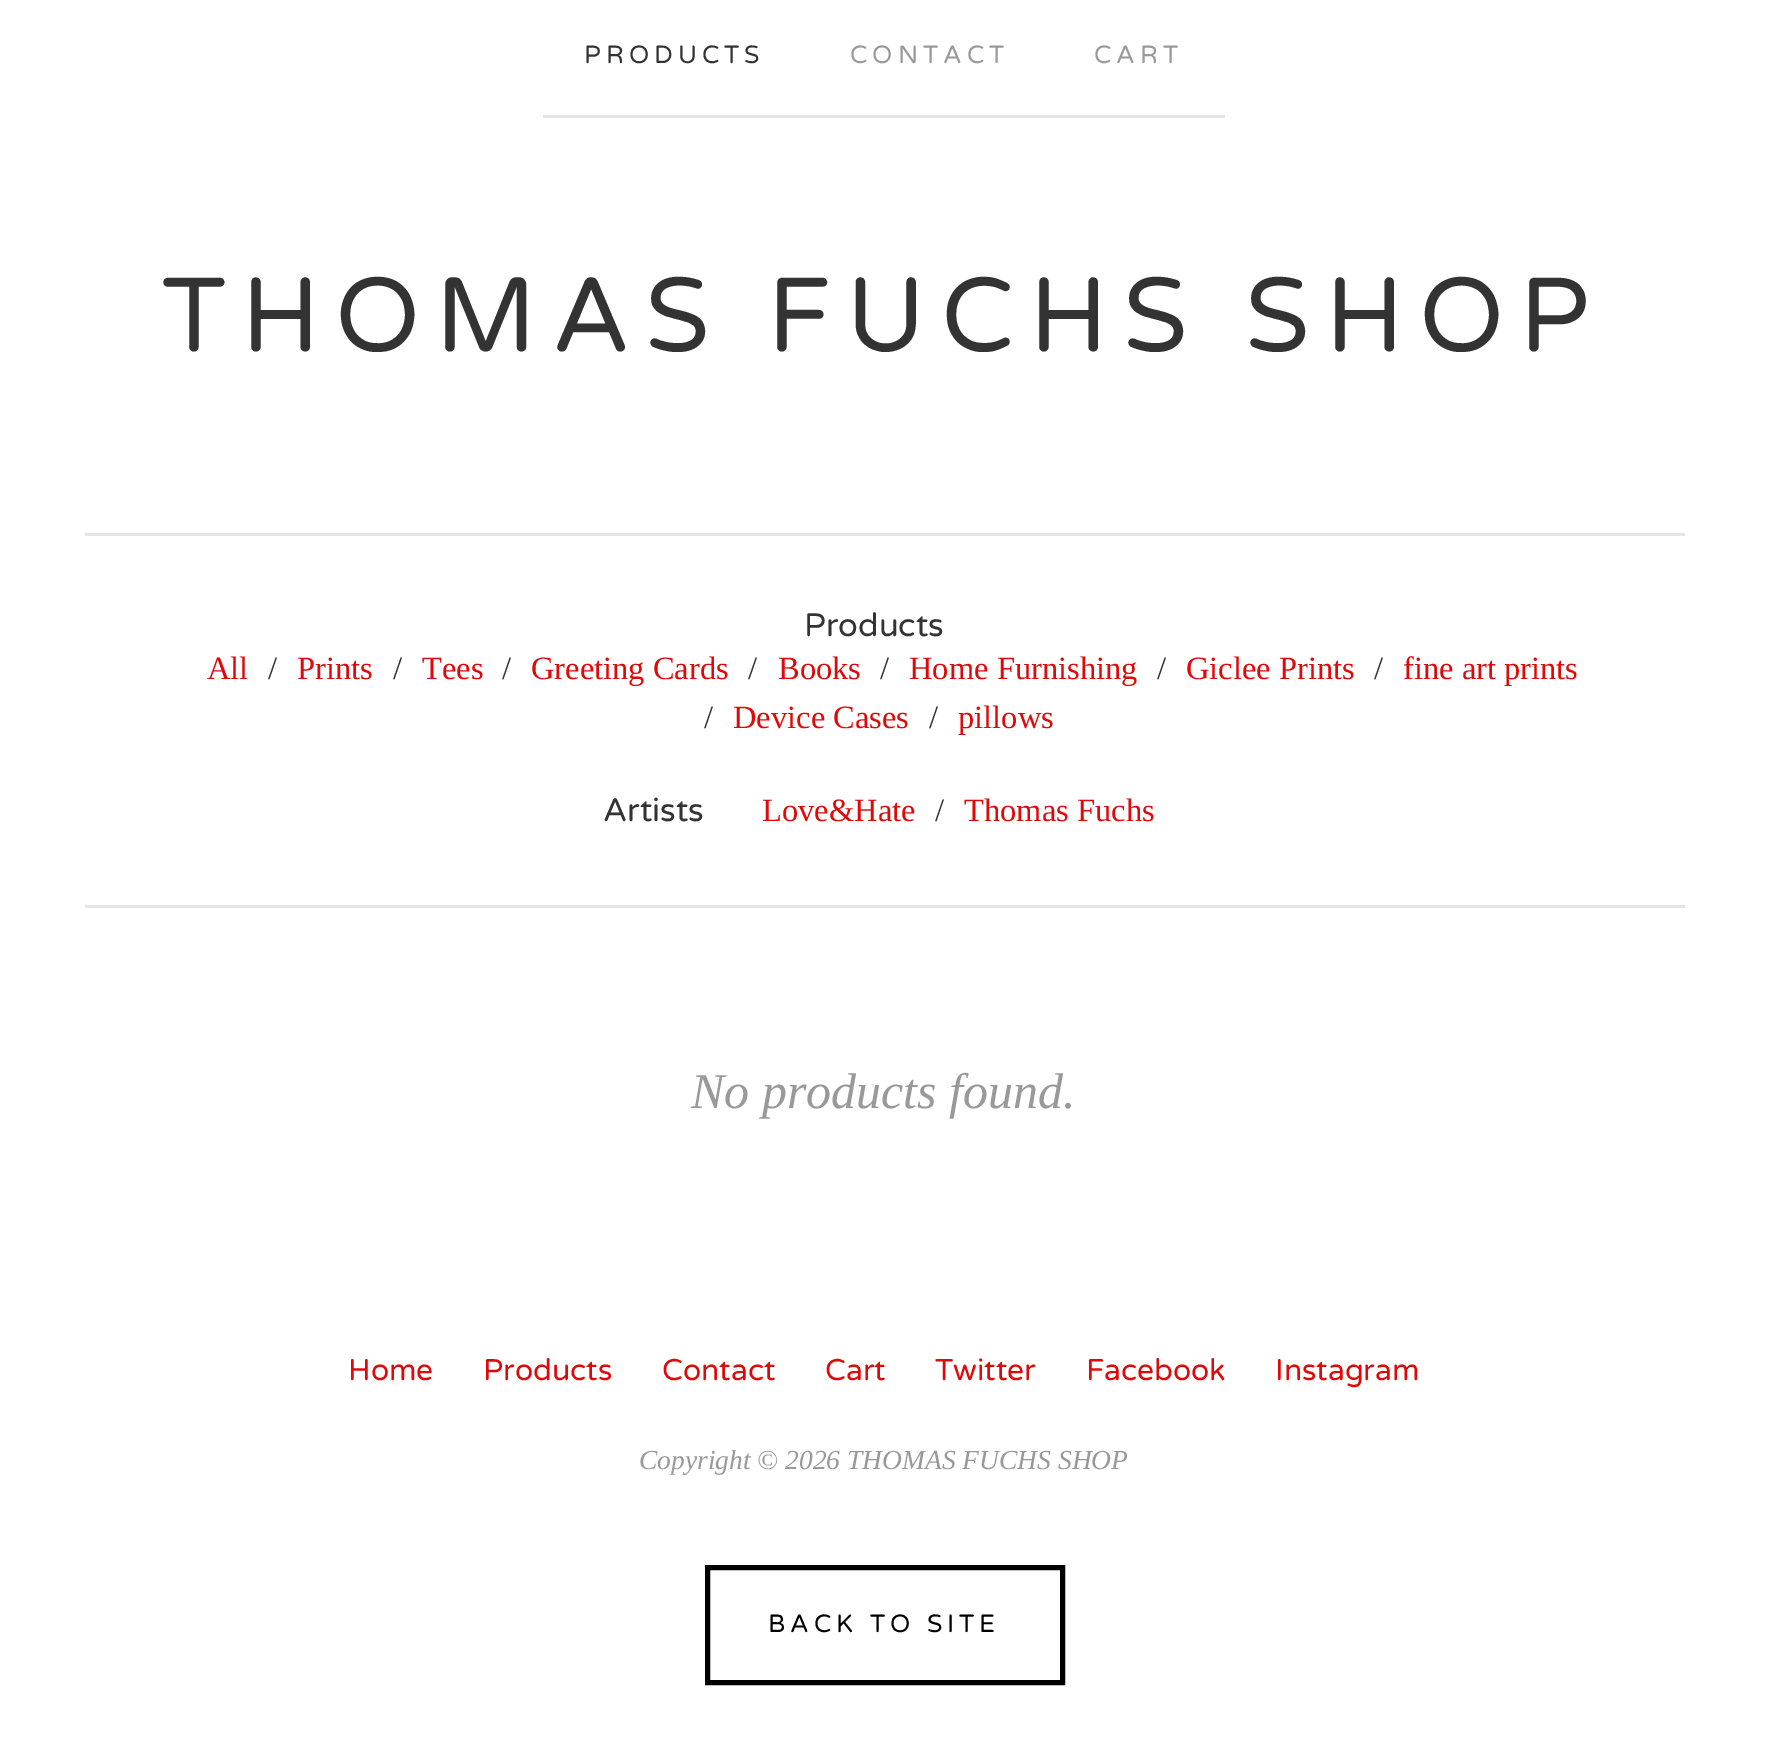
%!PS
<< /PageSize [1766 1760] >> setpagedevice
/rgb { 3 { 255 div 3 1 roll } repeat setrgbcolor } def
/font { [ exch dup neg 0 0 3 -1 roll 0 0 ] selectfont } def
/text { moveto show } def
0 1760 translate 1 -1 scale
4 setmiterlimit
255 255 255 rgb
0 0 1766 1760 rectfill
229 229 229 rgb
543 115 682 3 rectfill
85 533 1600 3 rectfill
85 905 1600 3 rectfill
0 0 0 rgb
5 setlinewidth
707.5 1567.5 355 115 rectstroke
/VarelaRound-Regular 25 font
51 51 51 rgb
584 63 moveto 5 0 (PRODUCTS) ashow
153 153 153 rgb
850 63 moveto 5 0 (CONTACT) ashow
1094 63 moveto 5 0 (CART) ashow
/VarelaRound-Regular 105 font
51 51 51 rgb
162 351 moveto 15 0 (THOMAS FUCHS SHOP) ashow
/VarelaRound-Regular 32.5 font
(Products) 804 636 text
/LiberationSerif-Regular 32.5 font
222 9 9 rgb
(All) 207 679 text
51 51 51 rgb
(/) 268 679 text
222 9 9 rgb
(Prints) 297 679 text
51 51 51 rgb
(/) 393 679 text
222 9 9 rgb
(Tees) 422 679 text
51 51 51 rgb
(/) 502 679 text
222 9 9 rgb
(Greeting Cards) 531 679 text
51 51 51 rgb
(/) 748 679 text
222 9 9 rgb
(Books) 778 679 text
51 51 51 rgb
(/) 880 679 text
222 9 9 rgb
(Home Furnishing) 909 679 text
51 51 51 rgb
(/) 1157 679 text
222 9 9 rgb
(Giclee Prints) 1186 679 text
51 51 51 rgb
(/) 1374 679 text
222 9 9 rgb
(fine art prints) 1403 679 text
51 51 51 rgb
(/) 704 728 text
222 9 9 rgb
(Device Cases) 733 728 text
51 51 51 rgb
(/) 929 728 text
222 9 9 rgb
(pillows) 958 728 text
/VarelaRound-Regular 32.5 font
51 51 51 rgb
(Artists) 603 821 text
/LiberationSerif-Regular 32.5 font
222 9 9 rgb
(Love&Hate) 762 821 text
51 51 51 rgb
(/) 935 821 text
222 9 9 rgb
(Thomas Fuchs) 964 821 text
/LiberationSerif-Italic 50 font
153 153 153 rgb
(No products found.) 691 1108 text
/VarelaRound-Regular 30 font
222 9 9 rgb
(Home) 348 1380 text
(Products) 483 1380 text
(Contact) 662 1380 text
(Cart) 825 1380 text
(Twitter) 935 1380 text
(Facebook) 1086 1380 text
(Instagram) 1275 1380 text
/LiberationSerif-Italic 27.5 font
153 153 153 rgb
(Copyright © 2026 THOMAS FUCHS SHOP) 639 1469 text
/VarelaRound-Regular 25 font
0 0 0 rgb
768 1632 moveto 5 0 (BACK TO SITE) ashow
showpage
